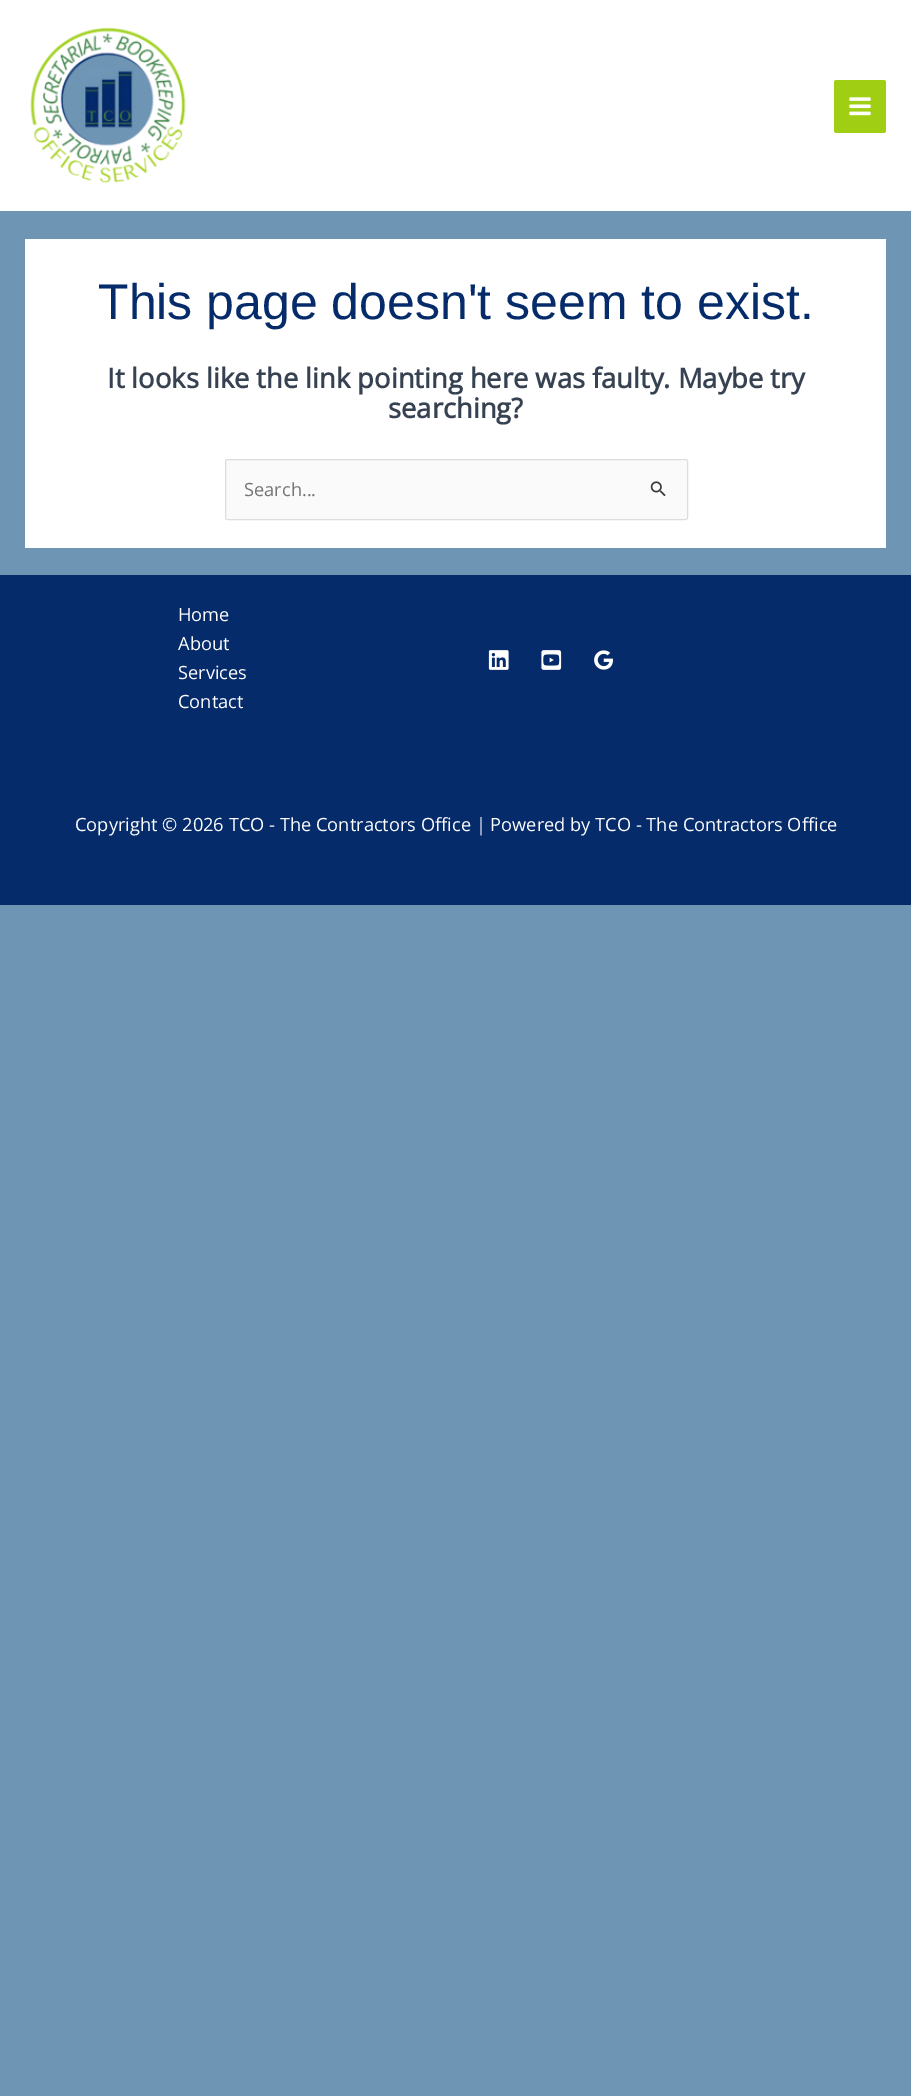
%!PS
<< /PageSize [911 2096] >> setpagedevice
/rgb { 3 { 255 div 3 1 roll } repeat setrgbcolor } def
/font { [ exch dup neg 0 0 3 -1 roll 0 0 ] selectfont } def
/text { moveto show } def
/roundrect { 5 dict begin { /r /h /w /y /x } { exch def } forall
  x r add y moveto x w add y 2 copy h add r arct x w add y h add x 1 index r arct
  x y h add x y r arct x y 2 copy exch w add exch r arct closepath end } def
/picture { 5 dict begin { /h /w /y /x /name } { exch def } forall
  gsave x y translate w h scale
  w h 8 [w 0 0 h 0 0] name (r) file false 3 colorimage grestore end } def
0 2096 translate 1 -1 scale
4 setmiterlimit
111 149 181 rgb
0 0 911 2096 rectfill
255 255 255 rgb
0 0 911 211 rectfill
(img_01.rgb) 30 27 156 157 picture
159 206 18 rgb
834 80 52 53 2.5 roundrect fill
(img_02.rgb) 849 97 22 19 picture
255 255 255 rgb
25 239 861 309 rectfill
250 250 250 rgb
225.5 459.5 462 60 2 roundrect gsave fill grestore
221 221 221 rgb
stroke
(img_03.rgb) 650 481 16 15 picture
5 43 106 rgb
0 575 911 179 rectfill
(img_04.rgb) 488 650 21 20 picture
(img_05.rgb) 541 650 21 20 picture
(img_06.rgb) 594 650 19 20 picture
0 754 911 151 rectfill
/LiberationSans-Regular 50 font
(This page doesn't seem to exist.) 98 319 text
/OpenSans-Bold 27.35 font
54 65 81 rgb
(It looks like the link pointing here was faulty. Maybe try) 107 388 text
(searching?) 388 418 text
/OpenSans-Regular 18.25 font
117 117 117 rgb
(Search...) 244 496 text
255 255 255 rgb
(Home) 178 621 text
(About) 178 650 text
(Services) 178 679 text
(Contact) 178 708 text
(Copyright © 2026 TCO - The Contractors Office | Powered by TCO - The Contractors Office) 75 831 text
showpage
